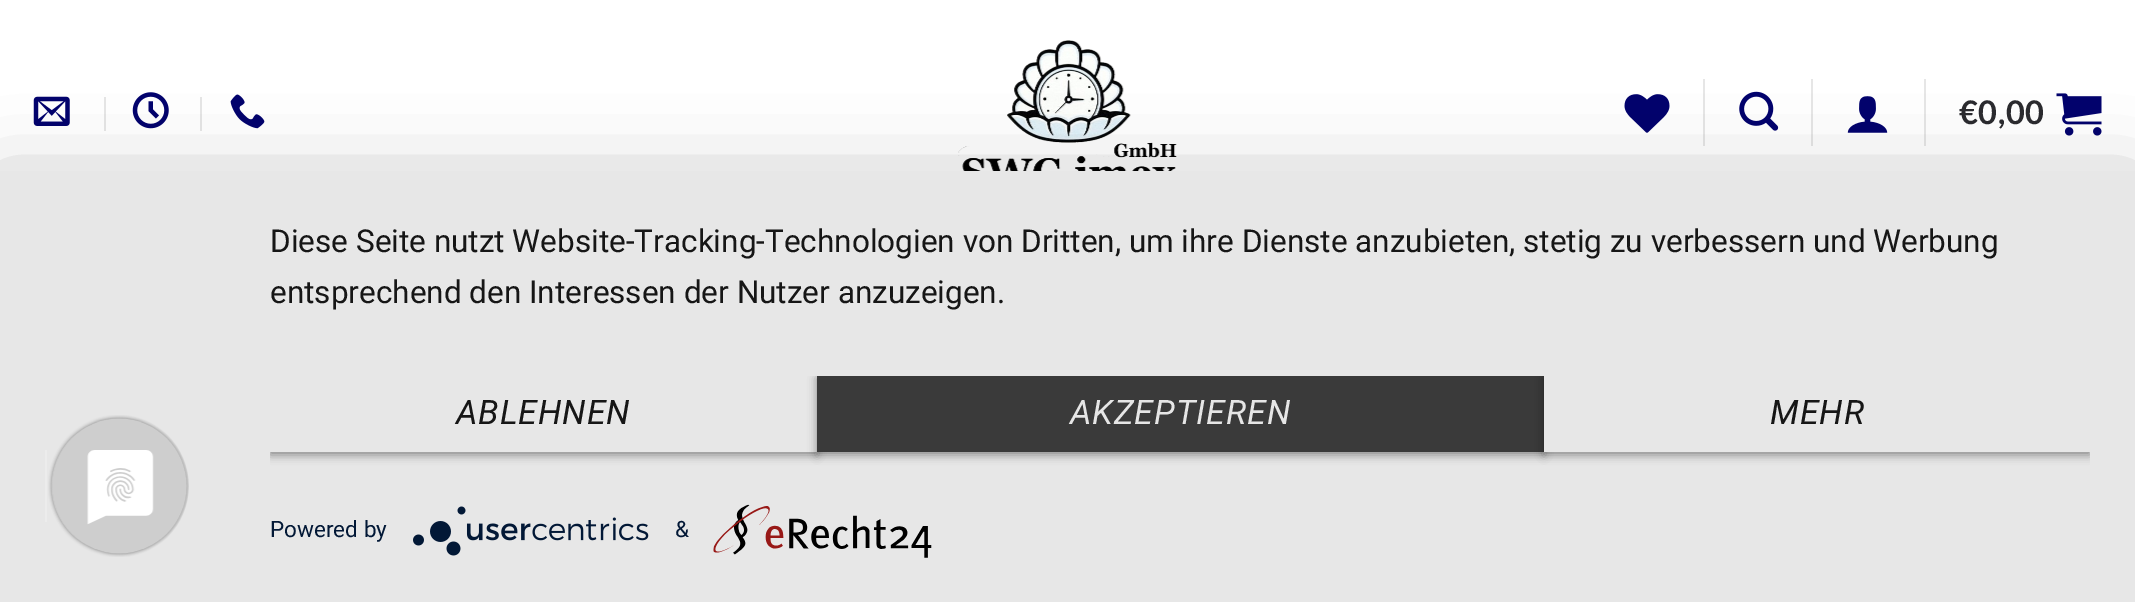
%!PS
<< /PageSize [2135 602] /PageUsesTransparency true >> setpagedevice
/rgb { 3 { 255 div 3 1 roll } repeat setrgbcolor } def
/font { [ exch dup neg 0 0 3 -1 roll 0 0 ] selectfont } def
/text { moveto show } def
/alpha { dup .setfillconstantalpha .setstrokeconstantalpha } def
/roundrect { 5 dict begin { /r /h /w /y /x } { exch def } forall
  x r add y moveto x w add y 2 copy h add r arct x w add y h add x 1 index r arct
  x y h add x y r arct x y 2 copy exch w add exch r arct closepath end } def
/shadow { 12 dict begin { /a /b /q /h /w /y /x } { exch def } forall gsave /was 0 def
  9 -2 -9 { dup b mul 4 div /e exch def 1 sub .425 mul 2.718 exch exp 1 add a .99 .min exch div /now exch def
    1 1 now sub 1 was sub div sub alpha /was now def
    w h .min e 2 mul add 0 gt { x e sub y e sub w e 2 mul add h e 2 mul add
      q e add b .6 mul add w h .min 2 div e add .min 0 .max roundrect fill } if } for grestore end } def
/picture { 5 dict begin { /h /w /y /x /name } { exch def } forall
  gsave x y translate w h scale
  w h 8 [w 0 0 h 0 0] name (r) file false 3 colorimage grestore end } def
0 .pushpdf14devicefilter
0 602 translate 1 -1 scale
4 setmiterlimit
255 255 255 rgb
0 0 2135 602 rectfill
(img_01.rgb) 33 96 37 30 picture
230 230 230 rgb
104 97 2 34 rectfill
(img_02.rgb) 132 92 37 37 picture
200 97 2 34 rectfill
(img_03.rgb) 230 94 35 35 picture
(img_04.rgb) 958 40 219 131 picture
(img_05.rgb) 1624 94 46 39 picture
1703 79 2 67 rectfill
(img_06.rgb) 1739 91 40 40 picture
1811 79 2 67 rectfill
(img_07.rgb) 1847 96 41 37 picture
1924 79 2 67 rectfill
(img_08.rgb) 2056 93 46 43 picture
0 0 0 rgb
0 185 2135 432 0 40.5 0.3 shadow
231 231 231 rgb
0 171 2135 431 rectfill
236 236 236 rgb
45 450 2 72 rectfill
(img_09.rgb) 48 415 141 142 picture
gsave
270 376 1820 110 rectclip
0 0 0 rgb
270 378 547 77 0 4.5 0.4 shadow
grestore
231 231 231 rgb
270 376 547 76 rectfill
gsave
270 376 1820 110 rectclip
0 0 0 rgb
817 378 727 77 0 4.5 0.4 shadow
grestore
58 58 58 rgb
817 376 727 76 rectfill
gsave
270 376 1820 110 rectclip
0 0 0 rgb
1544 378 546 77 0 4.5 0.4 shadow
grestore
231 231 231 rgb
1544 376 546 76 rectfill
(img_10.rgb) 413 506 236 50 picture
(img_11.rgb) 713 504 219 54 picture
/Lato-Bold 32.5 font
42 42 46 rgb
1959 124 moveto 0.5 0 (€0,00) ashow
/Roboto-Regular 31.5 font
22 22 22 rgb
(Diese Seite nutzt Website-Tracking-Technologien von Dritten, um ihre Dienste anzubieten, stetig zu verbessern und Werbung) 270 252 text
(entsprechend den Interessen der Nutzer anzuzeigen.) 270 303 text
/Roboto-Italic 33.75 font
456 424 moveto 1 0 (ABLEHNEN) ashow
230 230 230 rgb
1070 424 moveto 1 0 (AKZEPTIEREN) ashow
22 22 22 rgb
1770 424 moveto 1 0 (MEHR) ashow
/Roboto-Regular 22.5 font
2 24 54 rgb
(Powered by) 270 537 text
(&) 675 537 text
.poppdf14devicefilter showpage
